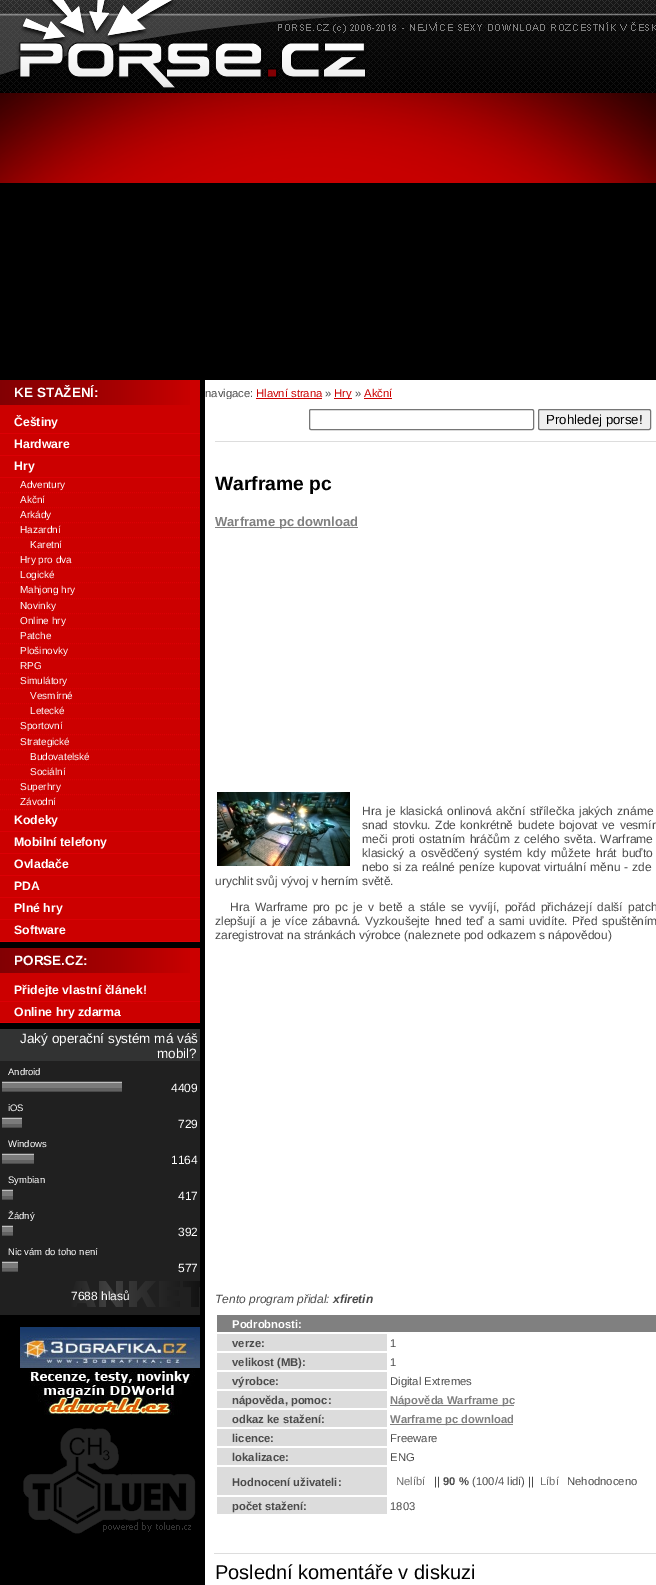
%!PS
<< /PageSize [656 1585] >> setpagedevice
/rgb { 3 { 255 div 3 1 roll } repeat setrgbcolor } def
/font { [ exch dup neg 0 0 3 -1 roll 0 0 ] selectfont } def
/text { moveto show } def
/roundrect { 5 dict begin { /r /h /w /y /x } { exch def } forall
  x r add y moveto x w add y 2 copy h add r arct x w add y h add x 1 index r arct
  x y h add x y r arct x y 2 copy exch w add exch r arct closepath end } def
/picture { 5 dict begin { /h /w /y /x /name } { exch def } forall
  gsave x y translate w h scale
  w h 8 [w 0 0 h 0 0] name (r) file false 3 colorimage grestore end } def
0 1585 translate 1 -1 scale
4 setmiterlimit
0 0 0 rgb
0 0 656 1585 rectfill
(img_01.rgb) 0 93 656 90 picture
(img_02.rgb) 0 0 656 93 picture
204 0 0 rgb
0 380 200 561 rectfill
(img_03.rgb) 0 380 190 25 picture
220 0 5 rgb
0 433 200 1 rectfill
0 455 200 1 rectfill
0 477 200 1 rectfill
[1 1] 0 setdash
0 492.5 moveto 200 0 rlineto stroke
0 507.5 moveto 200 0 rlineto stroke
0 522.5 moveto 200 0 rlineto stroke
0 537.5 moveto 200 0 rlineto stroke
0 552.5 moveto 200 0 rlineto stroke
0 567.5 moveto 200 0 rlineto stroke
0 582.5 moveto 200 0 rlineto stroke
0 598.5 moveto 200 0 rlineto stroke
0 613.5 moveto 200 0 rlineto stroke
0 628.5 moveto 200 0 rlineto stroke
0 643.5 moveto 200 0 rlineto stroke
0 658.5 moveto 200 0 rlineto stroke
0 673.5 moveto 200 0 rlineto stroke
0 688.5 moveto 200 0 rlineto stroke
0 703.5 moveto 200 0 rlineto stroke
0 718.5 moveto 200 0 rlineto stroke
0 734.5 moveto 200 0 rlineto stroke
0 749.5 moveto 200 0 rlineto stroke
0 764.5 moveto 200 0 rlineto stroke
0 779.5 moveto 200 0 rlineto stroke
0 794.5 moveto 200 0 rlineto stroke
0 809.5 moveto 200 0 rlineto stroke
0 831 200 1 rectfill
0 853 200 1 rectfill
0 875 200 1 rectfill
0 897 200 1 rectfill
0 919 200 1 rectfill
0 941 200 1 rectfill
204 0 0 rgb
0 948 200 74 rectfill
(img_03.rgb) 0 948 190 25 picture
220 0 5 rgb
0 1001 200 1 rectfill
0 1022 200 1 rectfill
32 32 32 rgb
0 1061 200 216 rectfill
50 51 51 rgb
0 1029 200 32 rectfill
(img_04.rgb) 2 1081 120 11 picture
(img_05.rgb) 2 1117 20 11 picture
(img_06.rgb) 2 1153 32 11 picture
(img_07.rgb) 2 1189 11 11 picture
(img_07.rgb) 2 1225 11 11 picture
(img_08.rgb) 2 1261 16 11 picture
(img_09.rgb) 0 1277 200 38 picture
(img_10.rgb) 20 1327 180 41 picture
(img_11.rgb) 29 1370 166 45 picture
(img_12.rgb) 23 1428 173 106 picture
255 255 255 rgb
205 380 451 1205 rectfill
204 0 0 rgb
256 398 66 1 rectfill
334 398 18 1 rectfill
364 398 28 1 rectfill
221 221 221 rgb
215 441 441 1 rectfill
118 118 118 rgb
[] 0 setdash
309.5 409.5 224 20 1.5 roundrect stroke
239 239 239 rgb
538.5 409.5 112 20 1.5 roundrect gsave fill grestore
118 118 118 rgb
stroke
221 221 221 rgb
214 1553 442 1 rectfill
128 128 128 rgb
215 527 143 1 rectfill
(img_13.rgb) 217 792 133 74 picture
217 1315 439 17 rectfill
220 220 220 rgb
217 1334 170 17 rectfill
217 1353 170 17 rectfill
217 1372 170 17 rectfill
217 1391 170 17 rectfill
128 128 128 rgb
390 1405 124 1 rectfill
220 220 220 rgb
217 1410 170 17 rectfill
128 128 128 rgb
390 1424 123 1 rectfill
220 220 220 rgb
217 1429 170 17 rectfill
217 1448 170 17 rectfill
217 1467 170 28 rectfill
217 1497 170 17 rectfill
/LiberationSans-Bold 13.5 font
255 255 255 rgb
(KE STAŽENÍ:) 14 397 text
/LiberationSans-Bold 12.25 font
(Češtiny) 14 426 text
(Hardware) 14 448 text
(Hry) 14 470 text
/LiberationSans-Regular 10 font
(Adventury) 20 488 text
(Akční) 20 503 text
(Arkády) 20 518 text
(Hazardní) 20 533 text
(Karetní) 30 548 text
(Hry pro dva) 20 563 text
(Logické) 20 578 text
(Mahjong hry) 20 593 text
(Novinky) 20 609 text
(Online hry) 20 624 text
(Patche) 20 639 text
(Plošinovky) 20 654 text
(RPG) 20 669 text
(Simulátory) 20 684 text
(Vesmírné) 30 699 text
(Letecké) 30 714 text
(Sportovní) 20 729 text
(Strategické) 20 745 text
(Budovatelské) 30 760 text
(Sociální) 30 775 text
(Superhry) 20 790 text
(Závodní) 20 805 text
/LiberationSans-Bold 12.25 font
(Kodeky) 14 824 text
(Mobilní telefony) 14 846 text
(Ovladače) 14 868 text
(PDA) 14 890 text
(Plné hry) 14 912 text
(Software) 14 934 text
/LiberationSans-Bold 13.5 font
(PORSE.CZ:) 14 965 text
/LiberationSans-Bold 12.25 font
(Přidejte vlastní článek!) 14 994 text
(Online hry zdarma) 14 1016 text
/LiberationSans-Regular 13.5 font
(Jaký operační systém má váš) 20 1043 text
(mobil?) 157 1058 text
/LiberationSans-Regular 9.5 font
(Android) 8 1075 text
/LiberationSans-Regular 12 font
(4409) 171 1092 text
/LiberationSans-Regular 9.5 font
(iOS) 8 1111 text
/LiberationSans-Regular 12 font
(729) 178 1128 text
/LiberationSans-Regular 9.5 font
(Windows) 8 1147 text
/LiberationSans-Regular 12 font
(1164) 171 1164 text
/LiberationSans-Regular 9.5 font
(Symbian) 8 1183 text
/LiberationSans-Regular 12 font
(417) 178 1200 text
/LiberationSans-Regular 9.5 font
(Žádný) 8 1219 text
/LiberationSans-Regular 12 font
(392) 178 1236 text
/LiberationSans-Regular 9.5 font
(Nic vám do toho není) 8 1255 text
/LiberationSans-Regular 12 font
(577) 178 1272 text
(7688 hlasů) 71 1300 text
/LiberationSans-Regular 11.25 font
75 75 75 rgb
(navigace:) 205 397 text
204 0 0 rgb
(Hlavní strana) 256 397 text
75 75 75 rgb
(») 325 397 text
204 0 0 rgb
(Hry) 334 397 text
75 75 75 rgb
(») 355 397 text
204 0 0 rgb
(Akční) 364 397 text
255 255 255 rgb
227 399 122 1 rectfill
/LiberationSans-Regular 13.25 font
0 0 0 rgb
(Prohledej porse!) 546 424 text
/LiberationSans-Bold 19.25 font
(Warframe pc) 215 490 text
/LiberationSans-Bold 13 font
128 128 128 rgb
(Warframe pc download) 215 526 text
/LiberationSans-Regular 12 font
75 75 75 rgb
362 815 moveto 1.25 0 32 (Hra je klasická onlinová akční střílečka jakých známe) widthshow
362 829 moveto 1.25 0 32 (snad stovku. Zde konkrétně budete bojovat ve vesmír) widthshow
362 843 moveto 1 0 32 (meči proti ostatním hráčům z celého světa. Warframe) widthshow
362 857 moveto 2 0 32 (klasický a osvědčený systém kdy můžete hrát buďto) widthshow
362 871 moveto 0.5 0 32 (nebo si za reálné peníze kupovat virtuální měnu - zde) widthshow
(urychlit svůj vývoj v herním světě.) 215 885 text
230 911 moveto 2 0 32 (Hra Warframe pro pc je v betě a stále se vyvíjí, pořád přicházejí další patch) widthshow
215 925 moveto 1.25 0 32 (zlepšují a je více zábavná. Vyzkoušejte hned teď a sami uvidíte. Před spuštěním) widthshow
(zaregistrovat na stránkách výrobce \(naleznete pod odkazem s nápovědou\)) 215 939 text
/LiberationSans-Italic 12 font
(Tento program přidal:) 215 1303 text
/LiberationSans-BoldItalic 12 font
(xfiretin) 333 1303 text
/LiberationSans-Bold 11.25 font
255 255 255 rgb
(Podrobnosti:) 232 1328 text
75 75 75 rgb
(verze:) 232 1347 text
/LiberationSans-Regular 11.25 font
(1) 390 1347 text
/LiberationSans-Bold 11.25 font
(velikost \(MB\):) 232 1366 text
/LiberationSans-Regular 11.25 font
(1) 390 1366 text
/LiberationSans-Bold 11.25 font
(výrobce:) 232 1385 text
/LiberationSans-Regular 11.25 font
(Digital Extremes) 390 1385 text
/LiberationSans-Bold 11.25 font
(nápověda, pomoc:) 232 1404 text
128 128 128 rgb
(Nápověda Warframe pc) 390 1404 text
75 75 75 rgb
(odkaz ke stažení:) 232 1423 text
128 128 128 rgb
(Warframe pc download) 390 1423 text
75 75 75 rgb
(licence:) 232 1442 text
/LiberationSans-Regular 11.25 font
(Freeware) 390 1442 text
/LiberationSans-Bold 11.25 font
(lokalizace:) 232 1461 text
/LiberationSans-Regular 11.25 font
(ENG) 390 1461 text
/LiberationSans-Bold 11.25 font
(Hodnocení uživateli:) 232 1486 text
/LiberationSans-Regular 11.25 font
110 110 110 rgb
(Nelíbí) 396 1485 text
75 75 75 rgb
(||) 434 1485 text
/LiberationSans-Bold 11.25 font
(90 %) 443 1485 text
/LiberationSans-Regular 11.25 font
(\(100/4 lidí\) ||) 472 1485 text
110 110 110 rgb
(Líbí) 540 1485 text
75 75 75 rgb
(Nehodnoceno) 567 1485 text
/LiberationSans-Bold 11.25 font
(počet stažení:) 232 1510 text
/LiberationSans-Regular 11.25 font
(1803) 390 1510 text
/LiberationSans-Regular 20 font
0 0 0 rgb
(Poslední komentáře v diskuzi) 215 1579 text
showpage
